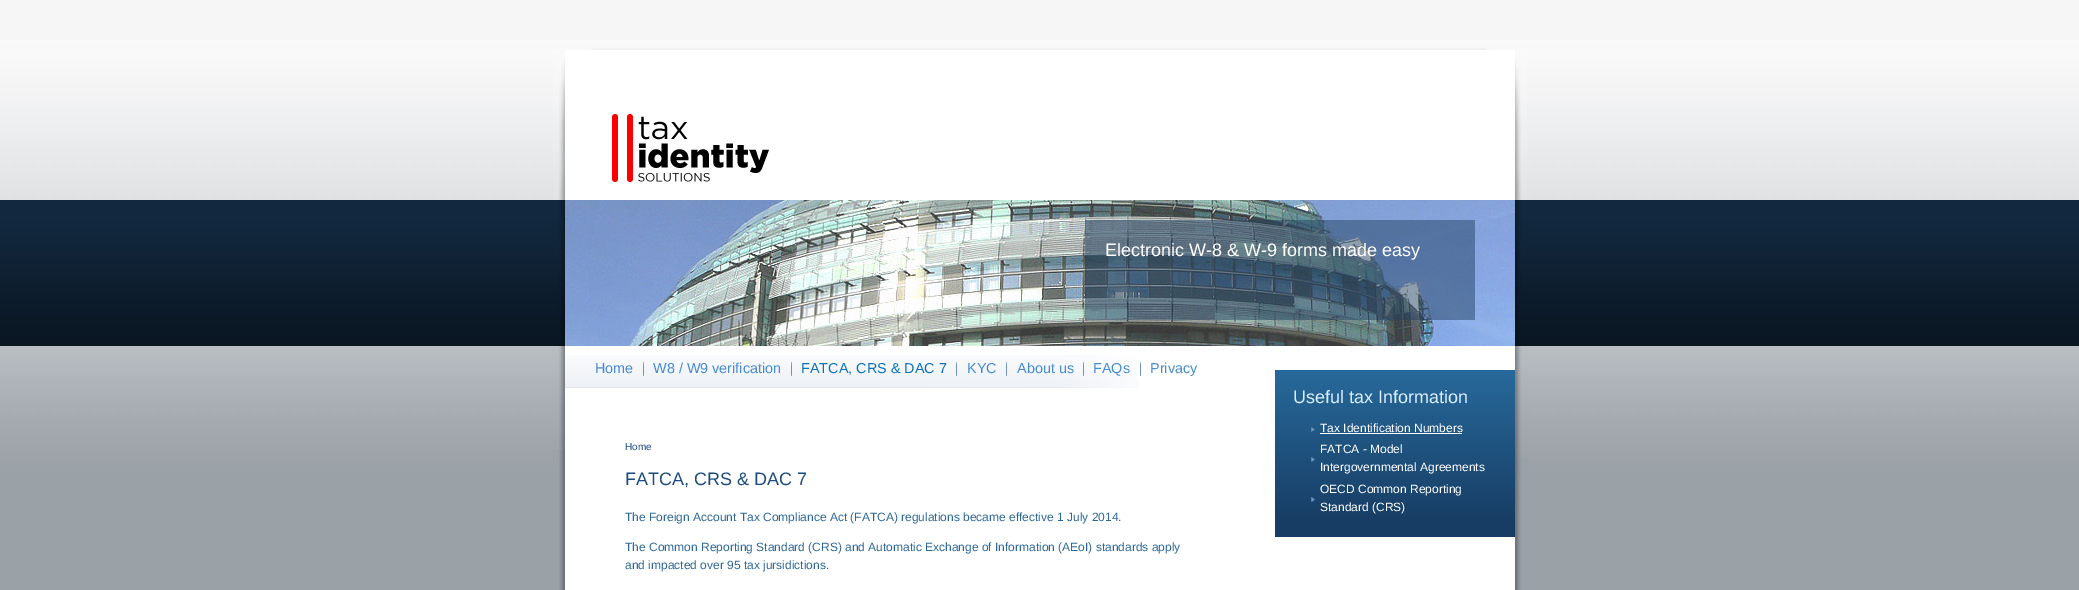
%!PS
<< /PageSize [2079 590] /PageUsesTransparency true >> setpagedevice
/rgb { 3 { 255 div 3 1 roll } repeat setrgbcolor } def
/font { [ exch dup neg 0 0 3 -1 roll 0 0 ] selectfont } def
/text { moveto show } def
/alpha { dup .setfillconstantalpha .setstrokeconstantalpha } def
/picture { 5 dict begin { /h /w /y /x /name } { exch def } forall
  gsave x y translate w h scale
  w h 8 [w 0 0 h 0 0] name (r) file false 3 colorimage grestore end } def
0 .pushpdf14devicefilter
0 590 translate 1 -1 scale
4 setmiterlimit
246 246 246 rgb
0 0 2079 590 rectfill
(img_01.rgb) 0 40 2079 550 picture
(img_02.rgb) 0 200 2079 146 picture
(img_03.rgb) 575 48 911 2 picture
(img_04.rgb) 1486 48 49 11 picture
(img_05.rgb) 553 450 12 140 picture
(img_06.rgb) 553 50 12 150 picture
(img_07.rgb) 553 200 12 146 picture
(img_08.rgb) 553 346 12 104 picture
(img_09.rgb) 1515 458 12 132 picture
(img_10.rgb) 1515 50 12 150 picture
(img_11.rgb) 1515 200 12 146 picture
(img_12.rgb) 1515 346 12 112 picture
255 255 255 rgb
565 50 950 540 rectfill
(img_13.rgb) 612 114 157 68 picture
(img_14.rgb) 565 200 950 146 picture
0.5 alpha
34 66 99 rgb
1085 220 390 100 rectfill
1 alpha
(img_15.rgb) 565 355 574 33 picture
(img_16.rgb) 643 362 1 14 picture
(img_16.rgb) 791 362 1 14 picture
(img_16.rgb) 956 362 1 14 picture
(img_16.rgb) 1006 362 1 14 picture
(img_16.rgb) 1083 362 1 14 picture
(img_16.rgb) 1140 362 1 14 picture
(img_17.rgb) 1275 370 240 167 picture
(img_18.rgb) 1311 427 4 5 picture
255 255 255 rgb
1320 433 142 1 rectfill
(img_19.rgb) 1311 457 4 5 picture
(img_20.rgb) 1311 497 4 5 picture
/LiberationSans-Regular 18 font
(Electronic W-8 & W-9 forms made easy) 1105 256 text
/LiberationSans-Regular 14.4 font
70 139 209 rgb
(Home) 595 373 text
(W8 / W9 verification) 653 373 text
11 113 182 rgb
(FATCA, CRS & DAC 7) 801 373 text
70 139 209 rgb
(KYC) 967 373 text
(About us) 1017 373 text
(FAQs) 1093 373 text
(Privacy) 1150 373 text
/LiberationSans-Regular 10 font
29 76 127 rgb
(Home) 625 450 text
/LiberationSans-Regular 18 font
(FATCA, CRS & DAC 7) 625 485 text
/LiberationSans-Regular 12 font
44 103 151 rgb
(The Foreign Account Tax Compliance Act \(FATCA\) regulations became effective 1 July 2014.) 625 521 text
(The Common Reporting Standard \(CRS\) and Automatic Exchange of Information \(AEoI\) standards apply) 625 551 text
(and impacted over 95 tax jursidictions.) 625 569 text
/LiberationSans-Regular 18 font
219 238 255 rgb
(Useful tax Information) 1293 403 text
/LiberationSans-Regular 12 font
255 255 255 rgb
(Tax Identification Numbers) 1320 432 text
(FATCA - Model) 1320 453 text
(Intergovernmental Agreements) 1320 471 text
(OECD Common Reporting) 1320 493 text
(Standard \(CRS\)) 1320 511 text
.poppdf14devicefilter showpage
